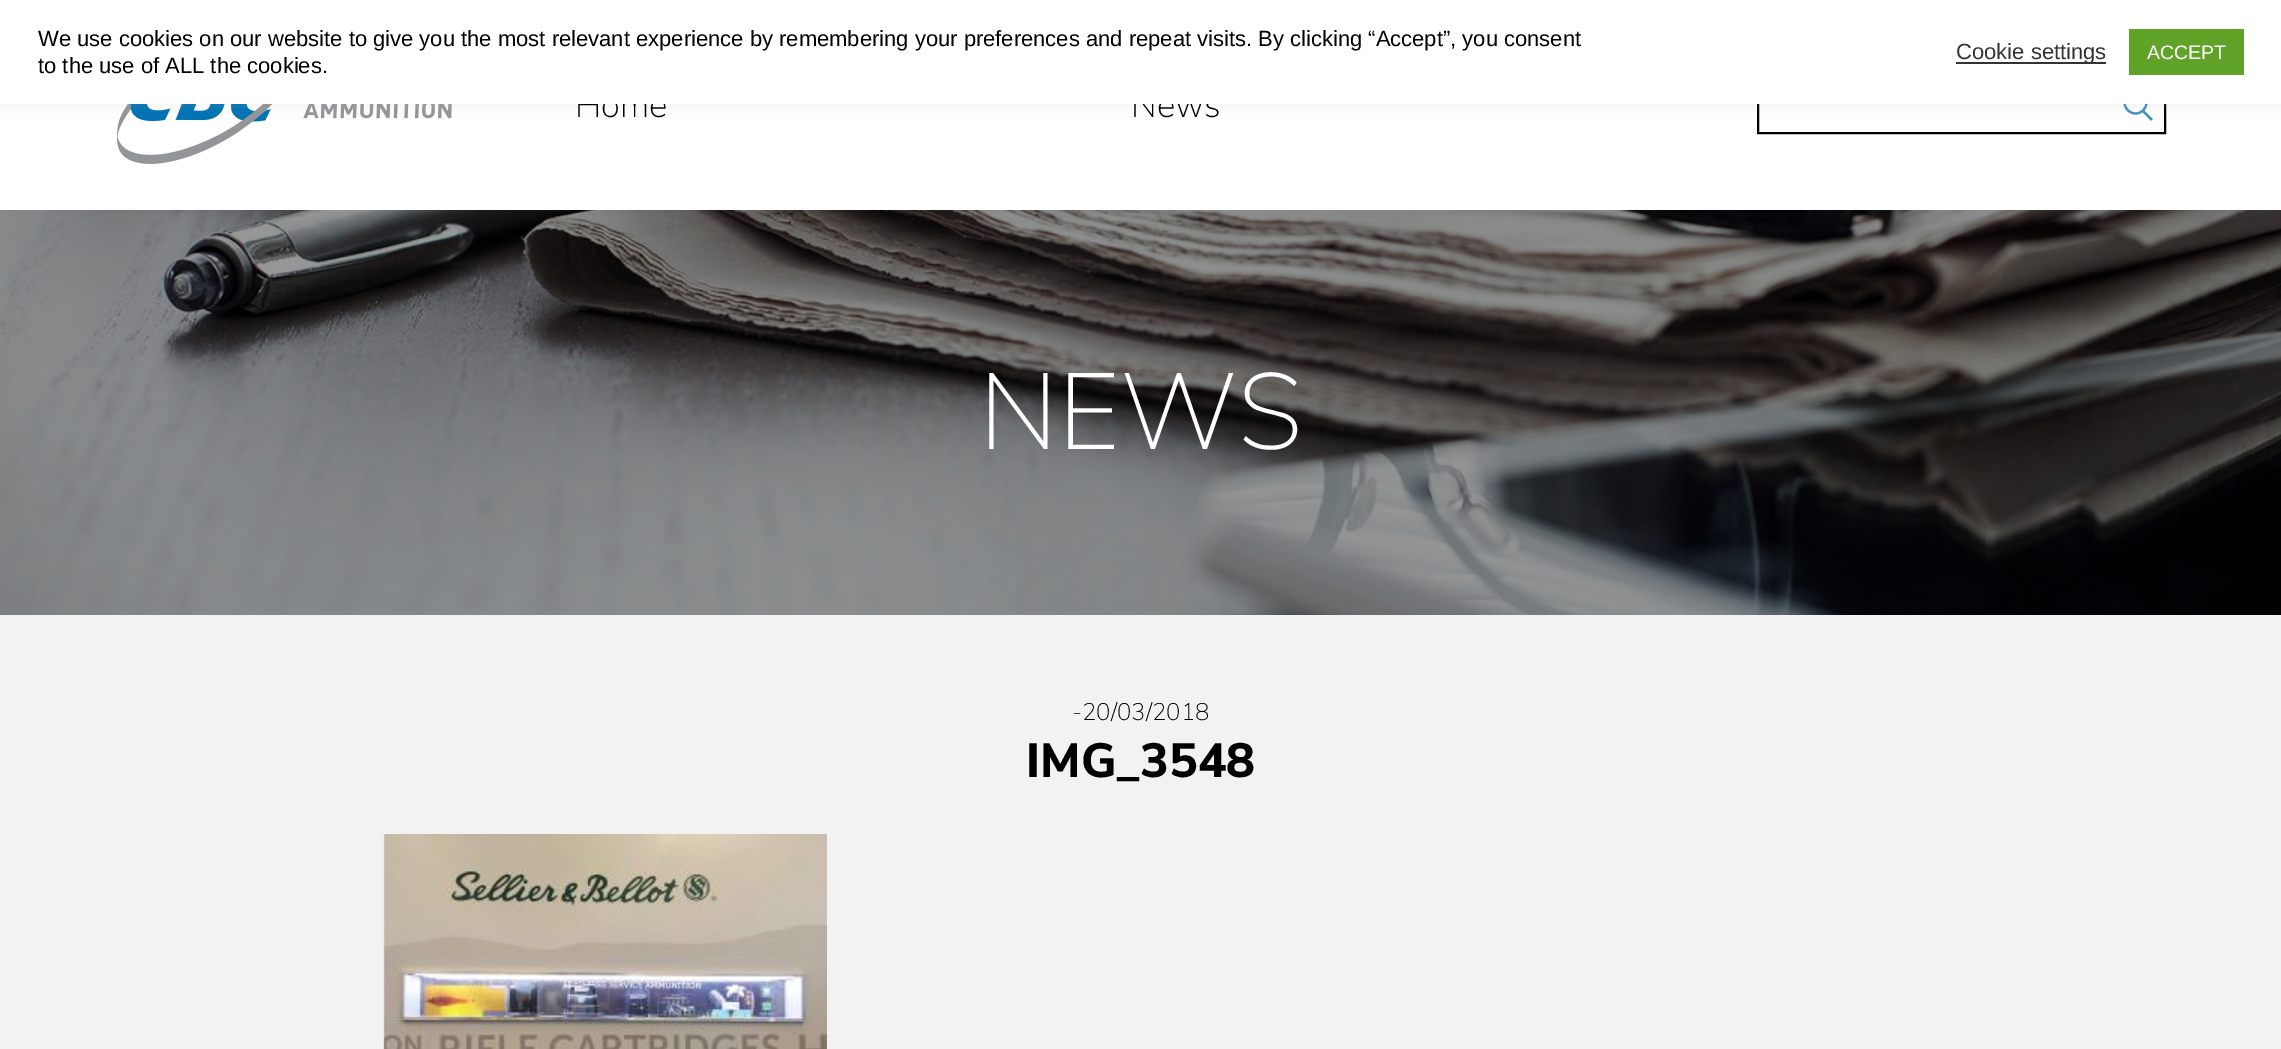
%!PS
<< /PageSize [2281 1049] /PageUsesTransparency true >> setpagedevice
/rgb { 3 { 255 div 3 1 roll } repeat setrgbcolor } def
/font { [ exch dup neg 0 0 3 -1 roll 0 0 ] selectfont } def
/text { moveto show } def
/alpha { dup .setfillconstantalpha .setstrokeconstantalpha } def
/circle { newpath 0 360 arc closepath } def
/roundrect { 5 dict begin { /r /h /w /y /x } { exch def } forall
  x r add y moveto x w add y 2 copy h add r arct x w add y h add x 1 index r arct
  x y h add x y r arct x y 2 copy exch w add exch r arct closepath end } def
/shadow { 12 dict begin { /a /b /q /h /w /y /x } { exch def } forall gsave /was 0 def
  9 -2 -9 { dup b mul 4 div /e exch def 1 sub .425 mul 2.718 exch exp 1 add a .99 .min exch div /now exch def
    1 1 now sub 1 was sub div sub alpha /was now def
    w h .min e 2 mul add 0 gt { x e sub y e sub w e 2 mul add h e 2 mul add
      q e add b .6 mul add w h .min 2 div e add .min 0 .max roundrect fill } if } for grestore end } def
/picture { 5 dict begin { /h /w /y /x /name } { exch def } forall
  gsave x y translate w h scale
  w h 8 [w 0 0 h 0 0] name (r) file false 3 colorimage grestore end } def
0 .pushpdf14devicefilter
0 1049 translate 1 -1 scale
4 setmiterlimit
242 242 242 rgb
0 0 2281 1049 rectfill
255 255 255 rgb
0 104 2281 106 rectfill
(img_01.rgb) 117 104 335 60 picture
0 0 0 rgb
2 setlinewidth
1758 78 407 55 rectstroke
65 144 193 rgb
2.2 setlinewidth
2135.5 102.5 11 circle stroke
2152 120 moveto -9.5 -9.5 rlineto stroke
172 171 171 rgb
0 -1 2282 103 0 7.5 0.3 shadow
(img_02.rgb) 0 210 2281 405 picture
(img_03.rgb) 383 834 444 215 picture
/NunitoSans-ExtraLight 35 font
0 0 0 rgb
(Home) 575 117 text
(News) 1131 117 text
255 255 255 rgb
0 0 2281 104 rectfill
97 162 41 rgb
2129 29 115 46 rectfill
/LiberationSans-Regular 19.5 font
255 255 255 rgb
(ACCEPT) 2147 59 text
51 51 51 rgb
1956 62 150 2 rectfill
/LiberationSans-Regular 22 font
(Cookie settings) 1956 59 text
0 0 0 rgb
(to the use of ALL the cookies.) 38 73 text
(We use cookies on our website to give you the most relevant experience by remembering your preferences and repeat visits. By clicking “Accept”, you consent) 38 46 text
/NunitoSans-ExtraLight 108 font
255 255 255 rgb
(NEWS) 979 449 text
/NunitoSans-ExtraLight 24 font
0 0 0 rgb
(-20/03/2018) 1072 720 text
/NunitoSans-ExtraBold 48 font
(IMG_3548) 1026 777 text
.poppdf14devicefilter showpage
